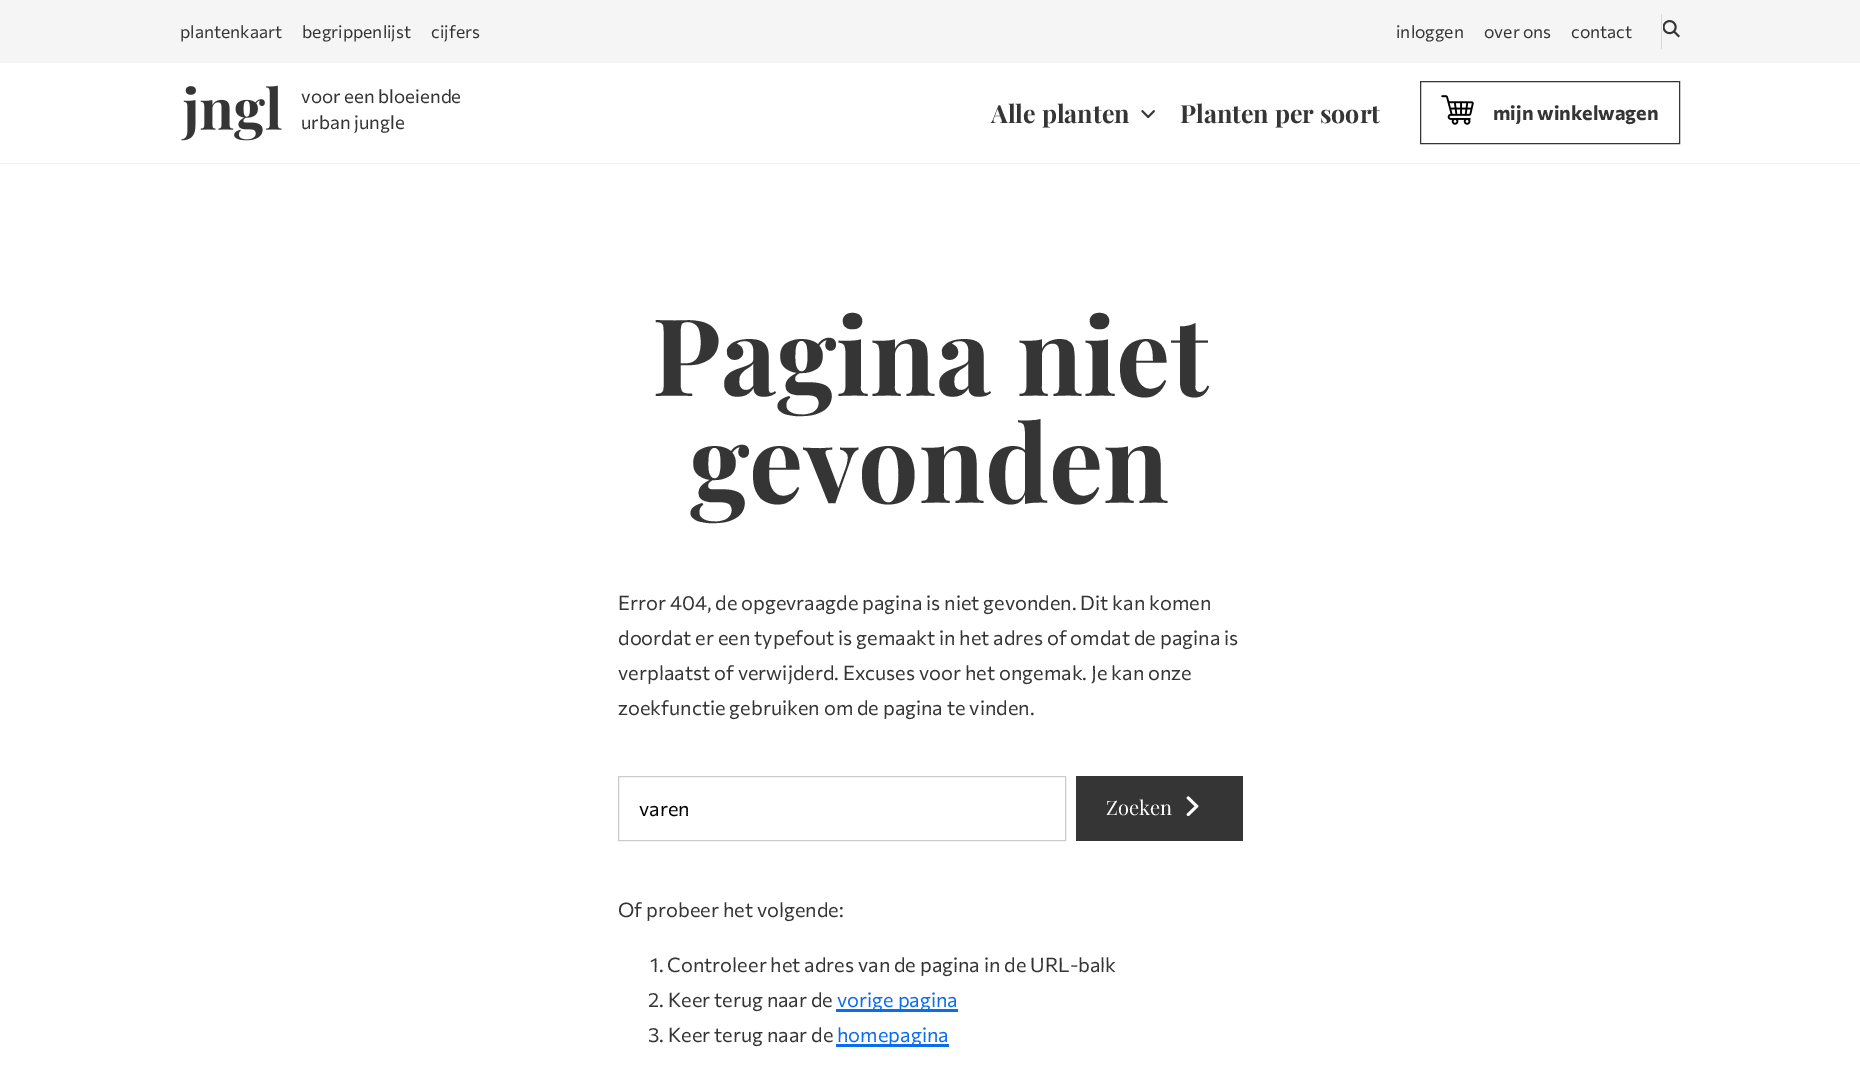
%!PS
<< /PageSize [1860 1091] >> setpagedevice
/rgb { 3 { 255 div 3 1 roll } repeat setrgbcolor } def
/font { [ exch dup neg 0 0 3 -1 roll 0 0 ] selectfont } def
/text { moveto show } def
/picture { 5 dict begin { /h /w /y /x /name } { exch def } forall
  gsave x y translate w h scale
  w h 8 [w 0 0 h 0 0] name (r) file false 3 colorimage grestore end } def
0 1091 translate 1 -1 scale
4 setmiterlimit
255 255 255 rgb
0 0 1860 1091 rectfill
245 245 245 rgb
0 0 1860 63 rectfill
217 217 217 rgb
1661 14 1 35 rectfill
(img_01.rgb) 1663 20 17 18 picture
244 244 244 rgb
0 163 1860 1 rectfill
(img_02.rgb) 181 85 101 56 picture
(img_03.rgb) 1141 110 14 9 picture
53 53 53 rgb
1420.5 81.5 259 62 rectstroke
(img_04.rgb) 1441 95 33 30 picture
203 203 203 rgb
618.5 776.5 447 64 rectstroke
53 53 53 rgb
1076 776 167 65 rectfill
(img_05.rgb) 1186 796 13 20 picture
10 108 239 rgb
836 1009 122 3 rectfill
836 1044 113 3 rectfill
/Commissioner-Regular 17.5 font
53 53 53 rgb
(plantenkaart) 180 38 text
(begrippenlijst) 302 38 text
(cijfers) 431 38 text
(inloggen) 1396 38 text
(over ons) 1484 38 text
(contact) 1571 38 text
/Commissioner-Regular 18.75 font
(voor een bloeiende) 301 103 text
(urban jungle) 301 129 text
/PlayfairDisplay-Bold 25 font
(Alle planten) 991 123 text
(Planten per soort) 1180 123 text
/Commissioner-Bold 20 font
(mijn winkelwagen) 1493 120 text
/PlayfairDisplay-Bold 107.5 font
(Pagina niet) 652 396 text
(gevonden) 690 503 text
/Commissioner-Regular 20 font
(Error 404, de opgevraagde pagina is niet gevonden. Dit kan komen) 618 610 text
(doordat er een typefout is gemaakt in het adres of omdat de pagina is) 618 645 text
(verplaatst of verwijderd. Excuses voor het ongemak. Je kan onze) 618 680 text
(zoekfunctie gebruiken om de pagina te vinden.) 618 715 text
0 0 0 rgb
(varen) 639 816 text
/PlayfairDisplay-Regular 20 font
255 255 255 rgb
(Zoeken) 1106 815 text
/Commissioner-Regular 20 font
53 53 53 rgb
(Of probeer het volgende:) 618 917 text
(1. Controleer het adres van de pagina in de URL-balk) 650 972 text
(2. Keer terug naar de) 648 1007 text
10 108 239 rgb
(vorige pagina) 837 1007 text
53 53 53 rgb
(3. Keer terug naar de) 648 1042 text
10 108 239 rgb
(homepagina) 837 1042 text
showpage
